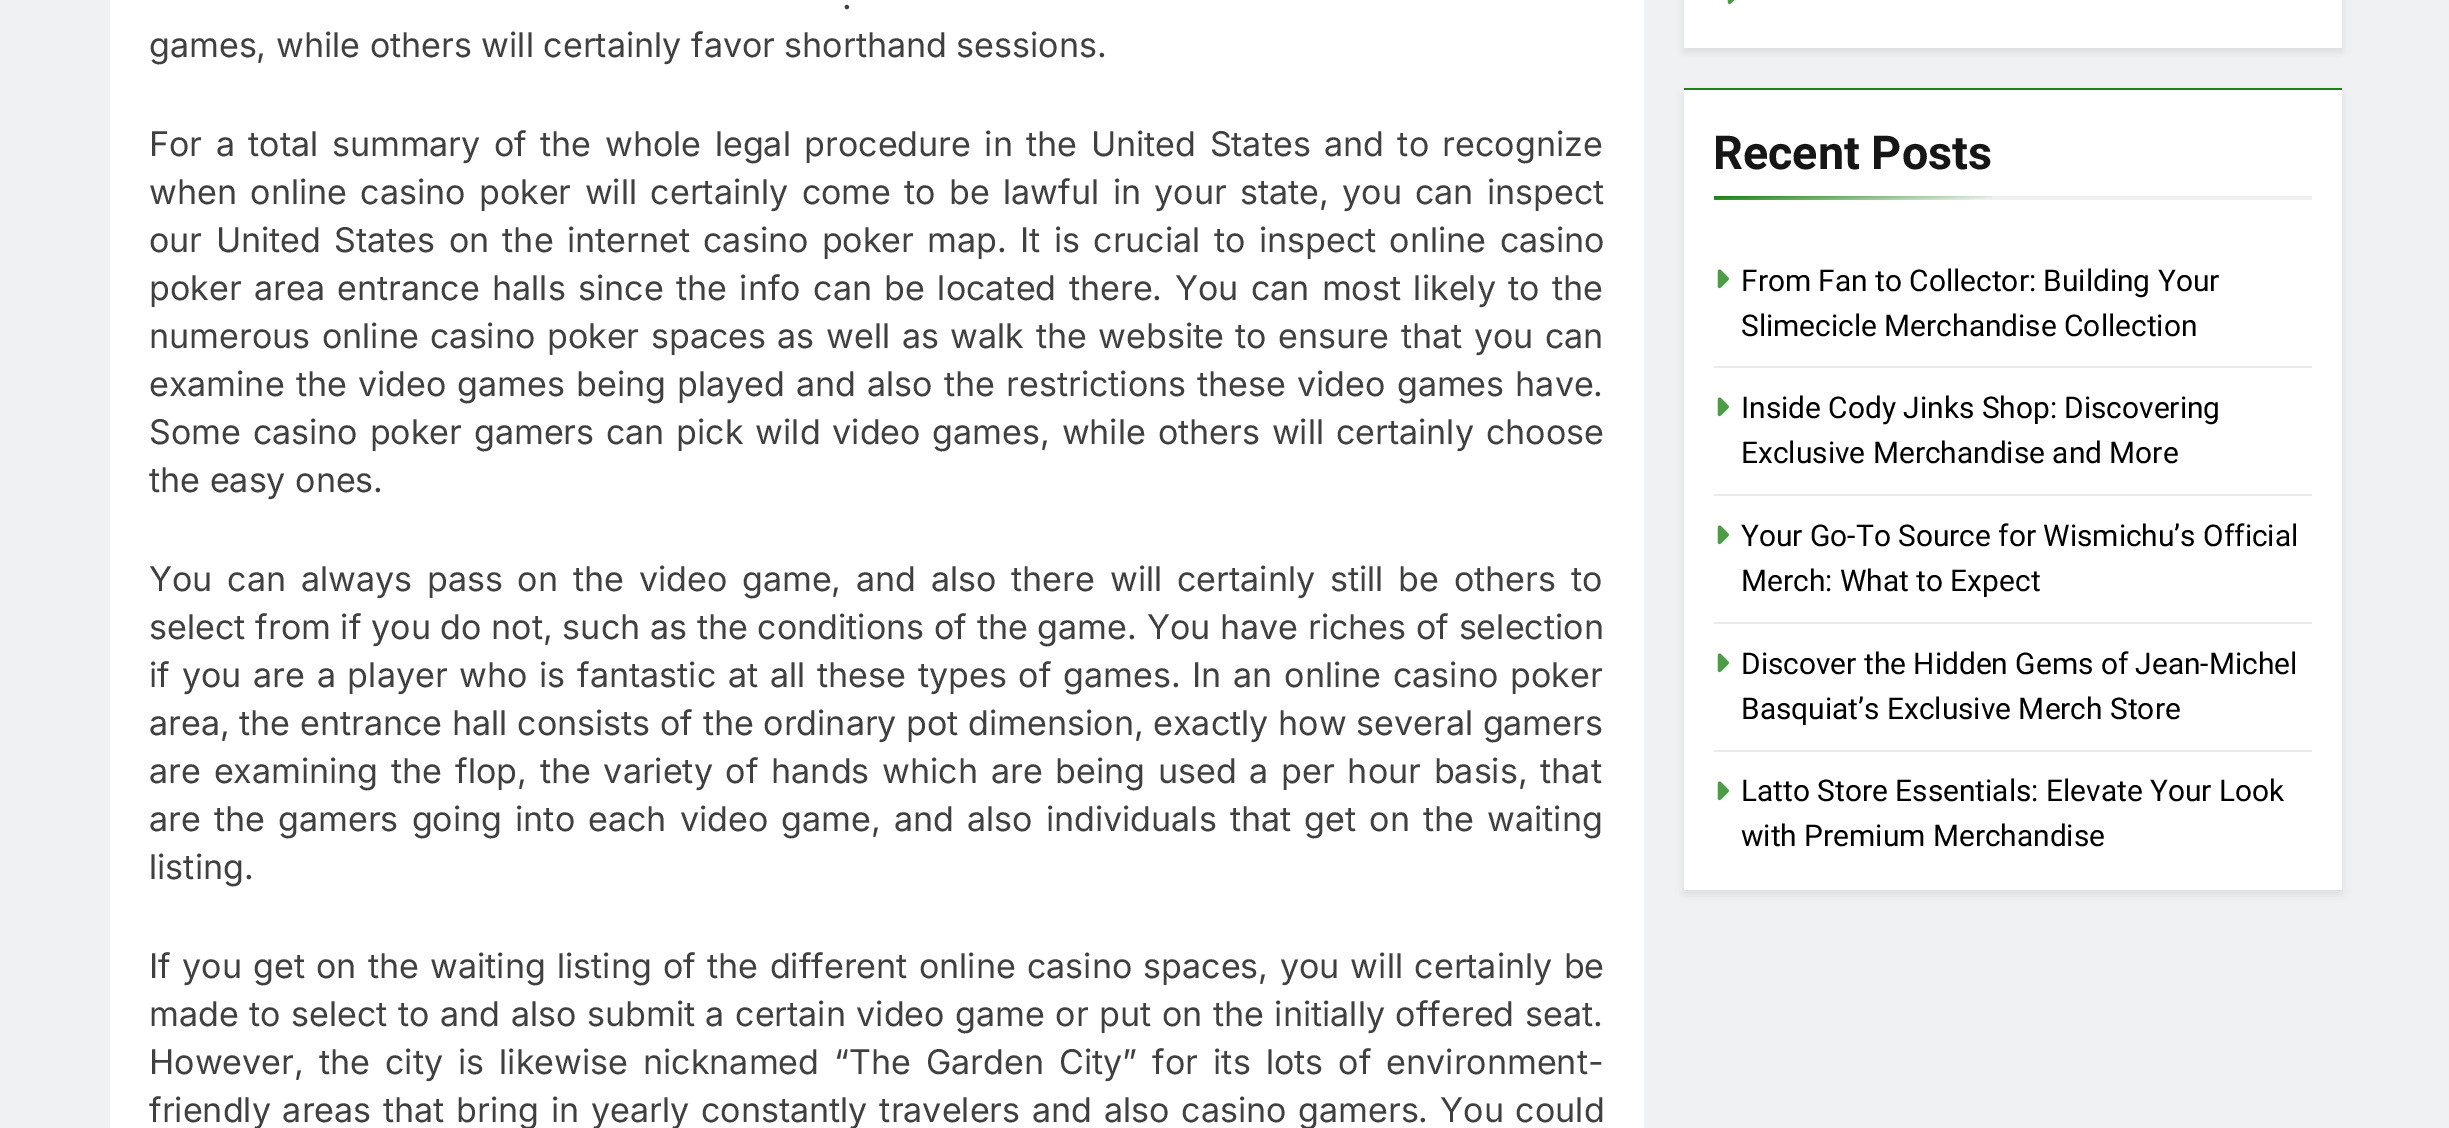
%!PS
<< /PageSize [2449 1128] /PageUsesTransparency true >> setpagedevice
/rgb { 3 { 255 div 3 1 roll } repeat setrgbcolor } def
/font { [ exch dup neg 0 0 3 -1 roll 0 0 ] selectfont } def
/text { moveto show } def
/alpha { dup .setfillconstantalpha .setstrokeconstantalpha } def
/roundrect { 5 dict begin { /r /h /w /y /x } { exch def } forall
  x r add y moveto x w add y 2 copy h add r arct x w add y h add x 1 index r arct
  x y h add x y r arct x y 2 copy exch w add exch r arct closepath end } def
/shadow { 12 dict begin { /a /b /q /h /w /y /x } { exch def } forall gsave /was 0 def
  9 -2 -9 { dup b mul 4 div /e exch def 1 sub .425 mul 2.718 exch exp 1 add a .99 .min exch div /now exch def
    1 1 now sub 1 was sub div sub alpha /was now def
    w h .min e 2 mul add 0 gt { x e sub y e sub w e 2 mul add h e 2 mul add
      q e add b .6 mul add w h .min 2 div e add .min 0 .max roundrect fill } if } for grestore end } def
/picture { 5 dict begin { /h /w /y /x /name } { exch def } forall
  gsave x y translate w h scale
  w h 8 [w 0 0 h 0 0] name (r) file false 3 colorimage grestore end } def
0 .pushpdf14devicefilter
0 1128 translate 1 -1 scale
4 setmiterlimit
240 241 242 rgb
0 0 2449 1128 rectfill
255 255 255 rgb
110 0 1534 1128 rectfill
0 0 0 rgb
1684 -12 658 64 0 4 0.08 shadow
255 255 255 rgb
1684 0 658 48 rectfill
(img_01.rgb) 1727 0 8 5 picture
0 0 0 rgb
1684 94 658 800 0 4 0.08 shadow
255 255 255 rgb
1684 90 658 800 rectfill
27 132 21 rgb
1684 88 658 2 rectfill
240 240 240 rgb
1992 196 320 4 rectfill
gsave 1714 196 moveto 278 0 rlineto 0 4 rlineto -278 0 rlineto closepath clip newpath
<< /ShadingType 2 /ColorSpace /DeviceRGB /Coords [1852 186 1854 210] /Extend [true true] /Function << /FunctionType 2 /Domain [0 1] /C0 [0.106 0.518 0.082] /C1 [0.941 0.941 0.941] /N 1 >> >> shfill grestore
234 234 234 rgb
1714 366 598 2 rectfill
(img_02.rgb) 1717 269 12 20 picture
1714 494 598 2 rectfill
(img_02.rgb) 1717 397 12 20 picture
1714 622 598 2 rectfill
(img_02.rgb) 1717 525 12 20 picture
1714 750 598 2 rectfill
(img_02.rgb) 1717 653 12 20 picture
(img_02.rgb) 1717 781 12 20 picture
/Inter-Regular 34 font
64 64 64 rgb
842 9 moveto 2.25 0 32 (.) widthshow
(games, while others will certainly favor shorthand sessions.) 149 57 text
149 156 moveto 3.9 0 32 (For a total summary of the whole legal procedure in the United States and to recognize) widthshow
149 204 moveto 3.75 0 32 (when online casino poker will certainly come to be lawful in your state, you can inspect) widthshow
149 252 moveto 3.75 0 32 (our United States on the internet casino poker map. It is crucial to inspect online casino) widthshow
149 300 moveto 2.9 0 32 (poker area entrance halls since the info can be located there. You can most likely to the) widthshow
149 348 moveto 2 0 32 (numerous online casino poker spaces as well as walk the website to ensure that you can) widthshow
149 396 moveto 1.6 0 32 (examine the video games being played and also the restrictions these video games have.) widthshow
149 444 moveto 2.25 0 32 (Some casino poker gamers can pick wild video games, while others will certainly choose) widthshow
(the easy ones.) 149 492 text
149 591 moveto 5.25 0 32 (You can always pass on the video game, and also there will certainly still be others to) widthshow
149 639 moveto 0.2 0 32 (select from if you do not, such as the conditions of the game. You have riches of selection) widthshow
149 687 moveto 2.25 0 32 (if you are a player who is fantastic at all these types of games. In an online casino poker) widthshow
149 735 moveto 0.1 0 32 (area, the entrance hall consists of the ordinary pot dimension, exactly how several gamers) widthshow
149 783 moveto 3.25 0 32 (are examining the flop, the variety of hands which are being used a per hour basis, that) widthshow
149 831 moveto 3.6 0 32 (are the gamers going into each video game, and also individuals that get on the waiting) widthshow
(listing.) 149 879 text
149 978 moveto 1.75 0 32 (If you get on the waiting listing of the different online casino spaces, you will certainly be) widthshow
149 1026 moveto 1 0 32 (made to select to and also submit a certain video game or put on the initially offered seat.) widthshow
149 1074 moveto 5.5 0 32 (However, the city is likewise nicknamed “The Garden City” for its lots of environment-) widthshow
149 1122 moveto 2.25 0 32 (friendly areas that bring in yearly constantly travelers and also casino gamers. You could) widthshow
/Roboto-Bold 46.75 font
22 22 22 rgb
(Recent Posts) 1713 169 text
/Roboto-Regular 29.9 font
0 0 0 rgb
(From Fan to Collector: Building Your) 1741 291 text
(Slimecicle Merchandise Collection) 1741 336 text
(Inside Cody Jinks Shop: Discovering) 1741 418 text
(Exclusive Merchandise and More) 1741 463 text
(Your Go-To Source for Wismichu’s Official) 1741 546 text
(Merch: What to Expect) 1741 591 text
(Discover the Hidden Gems of Jean-Michel) 1741 674 text
(Basquiat’s Exclusive Merch Store) 1741 719 text
(Latto Store Essentials: Elevate Your Look) 1741 801 text
(with Premium Merchandise) 1741 846 text
.poppdf14devicefilter showpage
